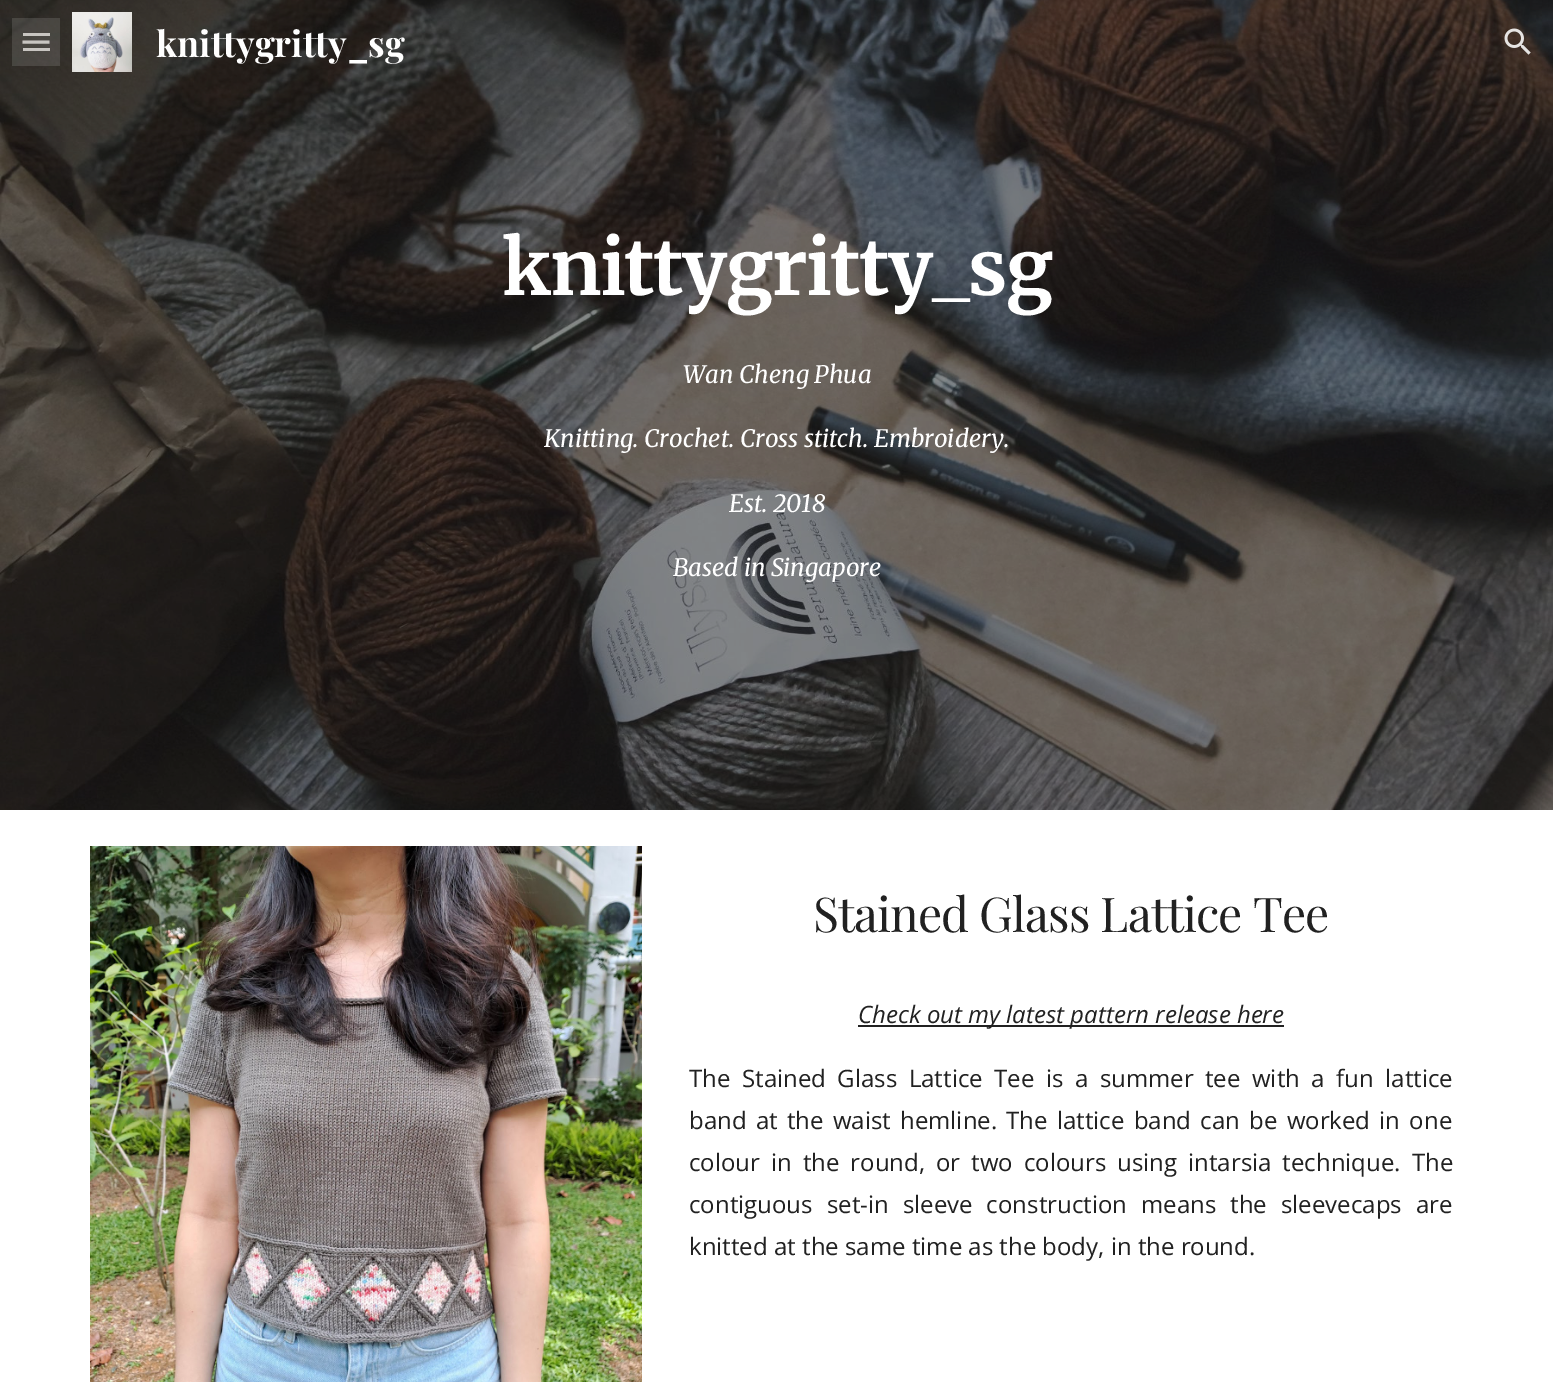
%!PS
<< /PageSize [1553 1382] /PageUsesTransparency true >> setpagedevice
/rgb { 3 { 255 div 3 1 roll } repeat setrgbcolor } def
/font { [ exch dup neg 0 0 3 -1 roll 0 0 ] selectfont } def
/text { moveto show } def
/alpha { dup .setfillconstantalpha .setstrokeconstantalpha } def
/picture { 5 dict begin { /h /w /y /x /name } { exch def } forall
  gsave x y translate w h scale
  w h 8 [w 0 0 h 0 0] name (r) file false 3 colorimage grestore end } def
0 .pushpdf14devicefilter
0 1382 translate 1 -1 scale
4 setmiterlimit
255 255 255 rgb
0 0 1553 1382 rectfill
(img_03.rgb) 0 0 1553 810 picture
192 189 184 rgb
23 33 27 3 rectfill
3 setlinewidth
22.5 42 moveto 27 0 rlineto stroke
23 48 27 3 rectfill
0.12 alpha
255 255 255 rgb
12 18 48 48 rectfill
1 alpha
(img_01.rgb) 72 12 60 60 picture
(img_02.rgb) 1504 28 27 27 picture
(img_04.rgb) 90 846 552 536 picture
33 33 33 rgb
858 1025 426 2 rectfill
/PlayfairDisplay-Bold 36 font
255 255 255 rgb
(knittygritty_sg) 156 57 text
/Merriweather-Bold 76 font
502 295 moveto -1.5 0 (knittygritty_sg) ashow
/Merriweather-Italic 24 font
(Wan Cheng Phua) 683 383 text
(Knitting. Crochet. Cross stitch. Embroidery.) 544 447 text
(Est. 2018) 729 512 text
(Based in Singapore) 673 576 text
/PlayfairDisplay-Regular 48 font
33 33 33 rgb
813 932 moveto -0.9 0 (Stained Glass Lattice Tee) ashow
/OpenSans-Italic 24 font
(Check out my latest pattern release here) 858 1023 text
/OpenSans-Regular 24 font
689 1087 moveto 5.25 0 32 (The Stained Glass Lattice Tee is a summer tee with a fun lattice) widthshow
689 1129 moveto 3 0 32 (band at the waist hemline. The lattice band can be worked in one) widthshow
689 1171 moveto 4.75 0 32 (colour in the round, or two colours using intarsia technique. The) widthshow
689 1213 moveto 7.75 0 32 (contiguous set-in sleeve construction means the sleevecaps are) widthshow
(knitted at the same time as the body, in the round.) 689 1255 text
.poppdf14devicefilter showpage
